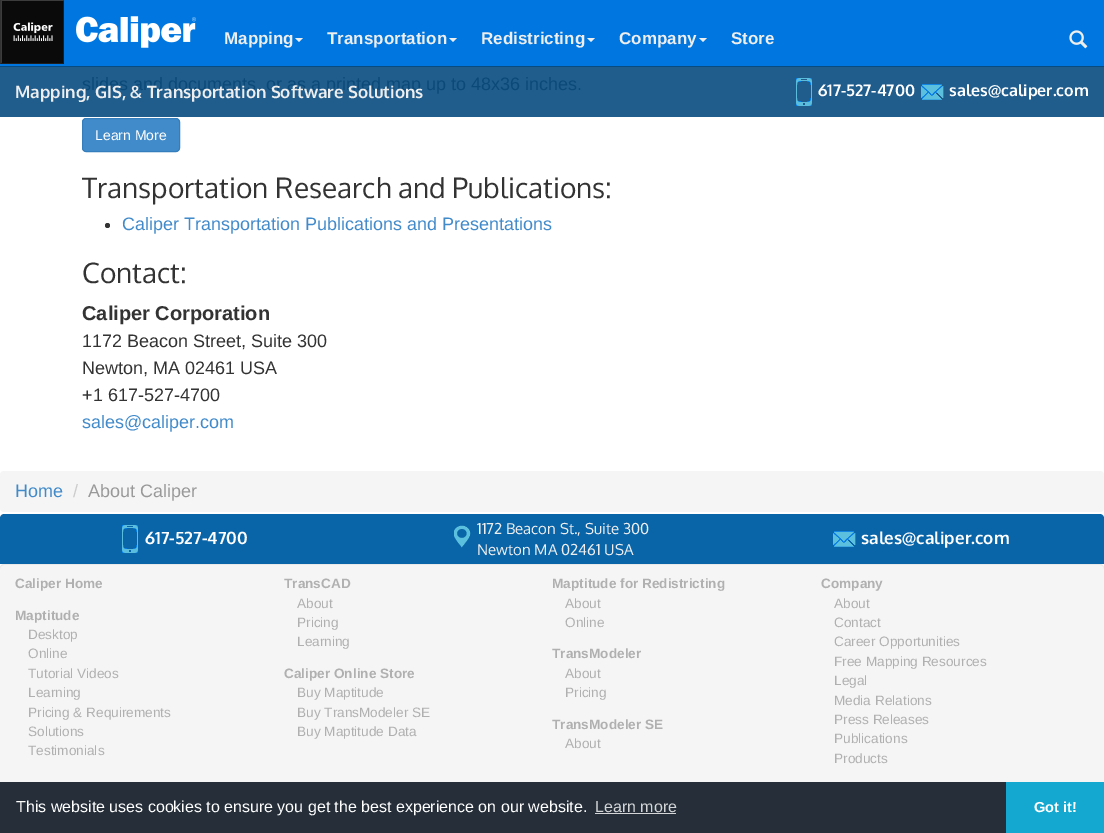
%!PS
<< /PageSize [1104 833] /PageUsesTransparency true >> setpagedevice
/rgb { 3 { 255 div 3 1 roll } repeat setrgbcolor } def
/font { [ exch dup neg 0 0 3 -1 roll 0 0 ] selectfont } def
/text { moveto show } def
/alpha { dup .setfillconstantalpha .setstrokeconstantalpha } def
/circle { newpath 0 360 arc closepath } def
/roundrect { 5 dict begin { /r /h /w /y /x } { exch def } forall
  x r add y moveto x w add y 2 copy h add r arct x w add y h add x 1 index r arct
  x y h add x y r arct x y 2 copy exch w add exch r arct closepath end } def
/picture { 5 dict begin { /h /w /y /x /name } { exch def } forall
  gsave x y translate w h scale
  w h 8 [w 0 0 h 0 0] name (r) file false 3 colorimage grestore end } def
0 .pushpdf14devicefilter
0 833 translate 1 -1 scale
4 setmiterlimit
255 255 255 rgb
0 0 1104 833 rectfill
32 93 141 rgb
0 67 1104 50 rectfill
0 119 224 rgb
0 0 1104 66 rectfill
7 75 128 rgb
0 66 1104 1 rectfill
(img_01.rgb) 0 0 196 64 picture
238 238 238 rgb
295 38 moveto 8 0 rlineto -4 4 rlineto closepath fill
449 38 moveto 8 0 rlineto -4 4 rlineto closepath fill
587 38 moveto 8 0 rlineto -4 4 rlineto closepath fill
699 38 moveto 8 0 rlineto -4 4 rlineto closepath fill
(img_02.rgb) 1069 30 19 19 picture
(img_03.rgb) 796 78 16 28 picture
(img_04.rgb) 921 84 23 16 picture
66 139 202 rgb
82.5 118.5 97 33 3.5 roundrect gsave fill grestore
53 126 189 rgb
stroke
51 51 51 rgb
107.5 225.5 2.5 circle fill
245 245 245 rgb
0 471 1104 41 4 roundrect fill
10 101 168 rgb
4 514 moveto 1096 0 rlineto 2 0 4 2 4 4 rcurveto 0 46 rlineto -1104 0 rlineto 0 -46 rlineto 0 -2 2 -4 4 -4 rcurveto closepath fill
(img_05.rgb) 122 525 16 28 picture
(img_06.rgb) 454 525 17 23 picture
(img_07.rgb) 833 531 23 16 picture
245 245 245 rgb
0 564 1104 226 4 roundrect fill
0.05 alpha
0 0 0 rgb
4 565 moveto 1096 0 rlineto 2 0 4 2 4 4 rcurveto 0 -3 -1 -5 -4 -5 rcurveto -1096 0 rlineto -3 0 -4 2 -4 5 rcurveto 0 -2 2 -4 4 -4 rcurveto closepath fill
1 alpha
37 46 57 rgb
0 782 1006 51 rectfill
211 213 215 rgb
595 813 81 1 rectfill
20 167 208 rgb
1006 782 98 51 rectfill
/LiberationSans-Bold 17 font
238 238 238 rgb
(Mapping) 224 44 text
(Transportation) 327 44 text
(Redistricting) 481 44 text
(Company) 619 44 text
(Store) 731 44 text
/Oxygen-Bold 16 font
255 255 255 rgb
(617-527-4700) 818 96 text
(sales@caliper.com) 949 96 text
/LiberationSans-Regular 18 font
11 73 120 rgb
(slides and documents, or as a printed map up to 48x36 inches.) 82 90 text
/Oxygen-Bold 17 font
238 238 238 rgb
(Mapping, GIS, & Transportation Software Solutions) 15 98 text
/LiberationSans-Regular 14 font
255 255 255 rgb
(Learn More) 95 140 text
/Oxygen-Regular 28 font
51 51 51 rgb
(Transportation Research and Publications:) 82 198 text
/LiberationSans-Regular 18 font
66 139 202 rgb
(Caliper Transportation Publications and Presentations) 122 230 text
/Oxygen-Regular 28 font
51 51 51 rgb
(Contact:) 82 283 text
/LiberationSans-Bold 20 font
(Caliper Corporation) 82 320 text
/LiberationSans-Regular 18 font
(1172 Beacon Street, Suite 300) 82 347 text
(Newton, MA 02461 USA) 82 374 text
(+1 617-527-4700) 82 401 text
66 139 202 rgb
(sales@caliper.com) 82 428 text
(Home) 15 497 text
204 204 204 rgb
(/) 73 497 text
153 153 153 rgb
(About Caliper) 88 497 text
/Oxygen-Bold 17 font
255 255 255 rgb
(617-527-4700) 145 544 text
/Oxygen-Regular 15 font
238 238 238 rgb
(1172 Beacon St., Suite 300) 477 534 text
(Newton MA 02461 USA) 477 555 text
/Oxygen-Bold 17 font
255 255 255 rgb
(sales@caliper.com) 861 544 text
/LiberationSans-Bold 13.6 font
176 176 176 rgb
(Caliper Home) 15 588 text
(Maptitude) 15 620 text
/LiberationSans-Regular 13.6 font
(Desktop) 28 639 text
(Online) 28 658 text
(Tutorial Videos) 28 678 text
(Learning) 28 697 text
(Pricing & Requirements) 28 717 text
(Solutions) 28 736 text
(Testimonials) 28 755 text
/LiberationSans-Bold 13.6 font
(TransCAD) 284 588 text
/LiberationSans-Regular 13.6 font
(About) 297 608 text
(Pricing) 297 627 text
(Learning) 297 646 text
/LiberationSans-Bold 13.6 font
(Caliper Online Store) 284 678 text
/LiberationSans-Regular 13.6 font
(Buy Maptitude) 297 697 text
(Buy TransModeler SE) 297 717 text
(Buy Maptitude Data) 297 736 text
/LiberationSans-Bold 13.6 font
(Maptitude for Redistricting) 552 588 text
/LiberationSans-Regular 13.6 font
(About) 565 608 text
(Online) 565 627 text
/LiberationSans-Bold 13.6 font
(TransModeler) 552 658 text
/LiberationSans-Regular 13.6 font
(About) 565 678 text
(Pricing) 565 697 text
/LiberationSans-Bold 13.6 font
(TransModeler SE) 552 729 text
/LiberationSans-Regular 13.6 font
(About) 565 748 text
/LiberationSans-Bold 13.6 font
(Company) 821 588 text
/LiberationSans-Regular 13.6 font
(About) 834 608 text
(Contact) 834 627 text
(Career Opportunities) 834 646 text
(Free Mapping Resources) 834 666 text
(Legal) 834 685 text
(Media Relations) 834 705 text
(Press Releases) 834 724 text
(Publications) 834 743 text
(Products) 834 763 text
/LiberationSans-Regular 16 font
255 255 255 rgb
(This website uses cookies to ensure you get the best experience on our website.) 16 812 text
211 213 215 rgb
(Learn more) 595 812 text
/LiberationSans-Bold 14.5 font
255 255 255 rgb
(Got it!) 1034 812 text
.poppdf14devicefilter showpage
